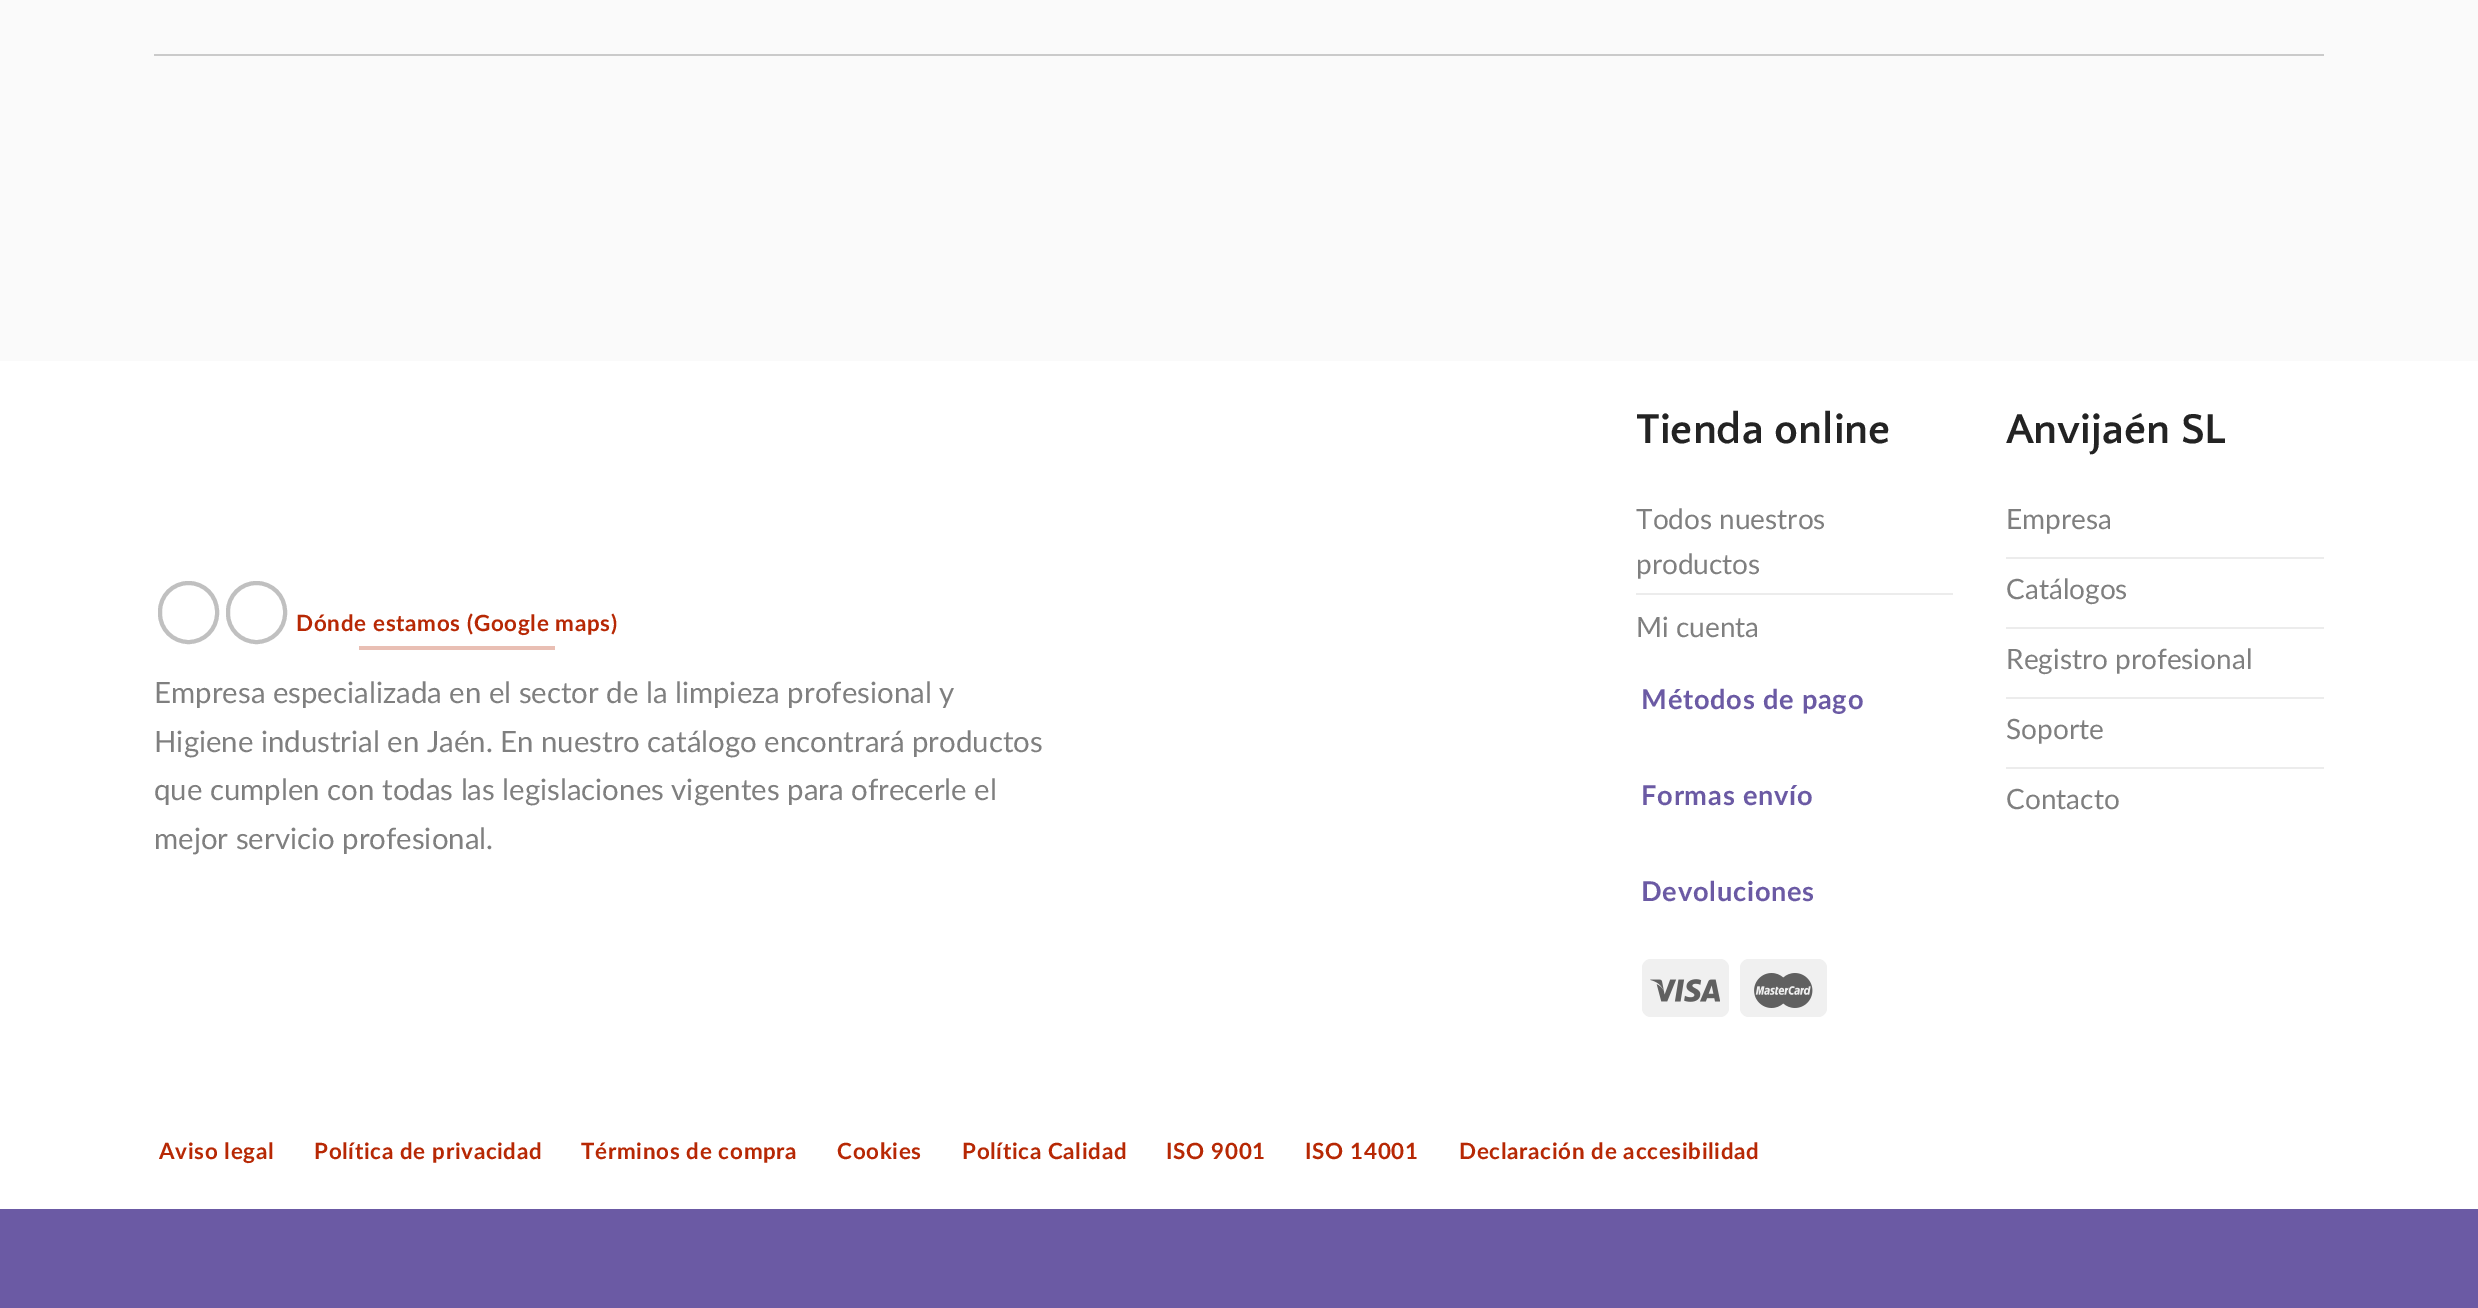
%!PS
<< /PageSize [2478 1308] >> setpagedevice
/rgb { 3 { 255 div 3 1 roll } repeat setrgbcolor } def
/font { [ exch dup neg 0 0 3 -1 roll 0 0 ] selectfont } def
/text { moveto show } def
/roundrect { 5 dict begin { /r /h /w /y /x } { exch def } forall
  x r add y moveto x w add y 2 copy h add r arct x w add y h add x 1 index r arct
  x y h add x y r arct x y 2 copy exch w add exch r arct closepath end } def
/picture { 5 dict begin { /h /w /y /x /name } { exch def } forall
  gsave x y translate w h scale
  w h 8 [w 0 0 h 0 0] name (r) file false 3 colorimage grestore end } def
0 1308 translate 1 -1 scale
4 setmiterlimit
250 250 250 rgb
0 0 2478 1308 rectfill
202 202 202 rgb
154 54 2170 2 rectfill
255 255 255 rgb
0 361 2478 848 rectfill
192 192 192 rgb
4 setlinewidth
160 583 57 59 28.5 roundrect stroke
228 583 57 59 28.5 roundrect stroke
233 191 180 rgb
359 646 196 4 rectfill
236 236 236 rgb
1636 593 317 2 rectfill
240 240 240 rgb
1642 959 87 58 9 roundrect fill
(img_01.rgb) 1650 979 70 23 picture
1740 959 87 58 9 roundrect fill
(img_02.rgb) 1754 973 59 35 picture
236 236 236 rgb
2006 557 318 2 rectfill
2006 627 318 2 rectfill
2006 697 318 2 rectfill
2006 767 318 2 rectfill
107 90 164 rgb
0 1209 2478 99 rectfill
/Lato-Bold 22.4 font
183 40 4 rgb
296 631 moveto 0.7 0 (Dónde estamos \(Google maps\)) ashow
/Lato-Regular 29.4 font
127 127 127 rgb
(Empresa especializada en el sector de la limpieza profesional y) 154 703 text
(Higiene industrial en Jaén. En nuestro catálogo encontrará productos) 154 752 text
(que cumplen con todas las legislaciones vigentes para ofrecerle el) 154 800 text
(mejor servicio profesional.) 154 849 text
/QuattrocentoSans-Bold 43.75 font
35 35 35 rgb
(Tienda online) 1636 443 text
/Lato-Regular 28 font
127 127 127 rgb
(Todos nuestros) 1636 529 text
(productos) 1636 574 text
(Mi cuenta) 1636 637 text
/Lato-Bold 27.25 font
107 90 164 rgb
1641 709 moveto 0.75 0 (Métodos de pago) ashow
1641 805 moveto 0.75 0 (Formas envío) ashow
1641 901 moveto 0.75 0 (Devoluciones) ashow
/QuattrocentoSans-Bold 43.75 font
35 35 35 rgb
(Anvijaén SL) 2006 443 text
/Lato-Regular 28 font
127 127 127 rgb
(Empresa) 2006 529 text
(Catálogos) 2006 599 text
(Registro profesional) 2006 669 text
(Soporte) 2006 739 text
(Contacto) 2006 809 text
/Lato-Bold 22.4 font
183 40 4 rgb
159 1159 moveto 0.7 0 (Aviso legal) ashow
314 1159 moveto 0.7 0 (Política de privacidad) ashow
581 1159 moveto 0.7 0 (Términos de compra) ashow
837 1159 moveto 0.7 0 (Cookies) ashow
962 1159 moveto 0.7 0 (Política Calidad) ashow
1166 1159 moveto 0.7 0 (ISO 9001) ashow
1305 1159 moveto 0.7 0 (ISO 14001) ashow
1459 1159 moveto 0.7 0 (Declaración de accesibilidad) ashow
showpage
